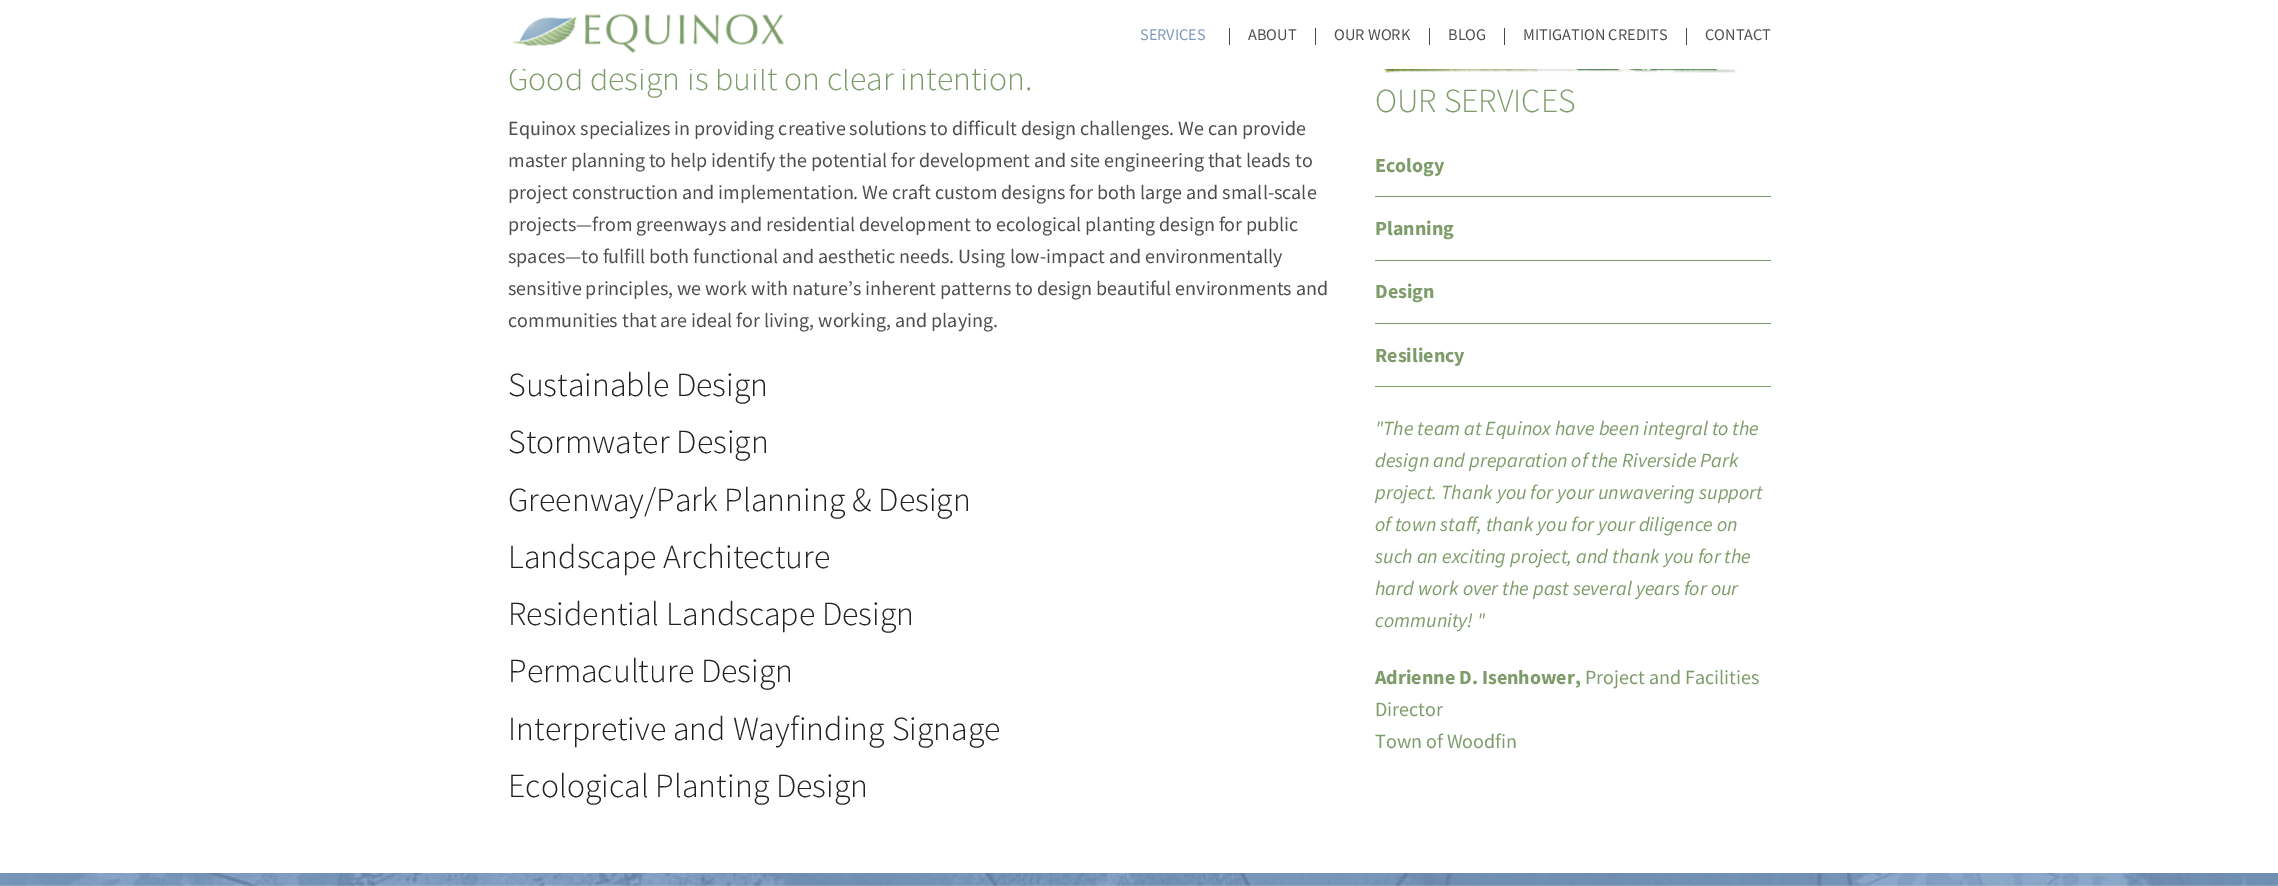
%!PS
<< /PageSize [2278 886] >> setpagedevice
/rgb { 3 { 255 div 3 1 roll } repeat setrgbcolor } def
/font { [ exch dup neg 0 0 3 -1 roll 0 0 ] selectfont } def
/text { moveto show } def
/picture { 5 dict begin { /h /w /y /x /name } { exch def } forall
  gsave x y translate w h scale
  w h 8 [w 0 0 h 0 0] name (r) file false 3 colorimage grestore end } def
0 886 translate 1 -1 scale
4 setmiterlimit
255 255 255 rgb
0 0 2278 886 rectfill
(img_01.rgb) 513 14 272 39 picture
72 74 71 rgb
1229 28 1 17 rectfill
1315 28 1 17 rectfill
1429 28 1 17 rectfill
1504 28 1 17 rectfill
1686 28 1 17 rectfill
(img_02.rgb) 1380 69 358 5 picture
125 156 106 rgb
1375 196 396 1 rectfill
1375 260 396 1 rectfill
1375 323 396 1 rectfill
1375 386 396 1 rectfill
(img_03.rgb) 0 873 2278 13 picture
/SourceSansPro-Regular 16.25 font
124 154 186 rgb
(SERVICES) 1140 40 text
78 78 78 rgb
(ABOUT) 1248 40 text
(OUR WORK) 1334 40 text
(BLOG) 1448 40 text
(MITIGATION CREDITS) 1523 40 text
(CONTACT) 1705 40 text
/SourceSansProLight-Light 33.75 font
125 156 106 rgb
(Good design is built on clear intention.) 508 90 text
255 255 255 rgb
514 65 473 4 rectfill
/SourceSansPro-Regular 20 font
78 78 78 rgb
(Equinox specializes in providing creative solutions to difficult design challenges. We can provide) 508 135 text
(master planning to help identify the potential for development and site engineering that leads to) 508 167 text
(project construction and implementation. We craft custom designs for both large and small-scale) 508 199 text
(projects—from greenways and residential development to ecological planting design for public) 508 231 text
(spaces—to fulfill both functional and aesthetic needs. Using low-impact and environmentally) 508 263 text
(sensitive principles, we work with nature’s inherent patterns to design beautiful environments and) 508 295 text
(communities that are ideal for living, working, and playing.) 508 327 text
/SourceSansProLight-Light 33.75 font
34 34 34 rgb
(Sustainable Design) 508 396 text
(Stormwater Design) 508 453 text
(Greenway/Park Planning & Design) 508 511 text
(Landscape Architecture) 508 568 text
(Residential Landscape Design) 508 625 text
(Permaculture Design) 508 682 text
(Interpretive and Wayfinding Signage) 508 740 text
(Ecological Planting Design) 508 797 text
125 156 106 rgb
(OUR SERVICES) 1375 112 text
/SourceSansPro-Bold 20 font
(Ecology) 1375 172 text
(Planning) 1375 235 text
(Design) 1375 298 text
(Resiliency) 1375 362 text
/SourceSansPro-Italic 20 font
("The team at Equinox have been integral to the) 1375 435 text
(design and preparation of the Riverside Park) 1375 467 text
(project. Thank you for your unwavering support) 1375 499 text
(of town staff, thank you for your diligence on) 1375 531 text
(such an exciting project, and thank you for the) 1375 563 text
(hard work over the past several years for our) 1375 595 text
(community! ") 1375 627 text
/SourceSansPro-Bold 20 font
(Adrienne D. Isenhower,) 1375 684 text
/SourceSansPro-Regular 20 font
(Project and Facilities) 1585 684 text
(Director) 1375 716 text
(Town of Woodfin) 1375 748 text
showpage
